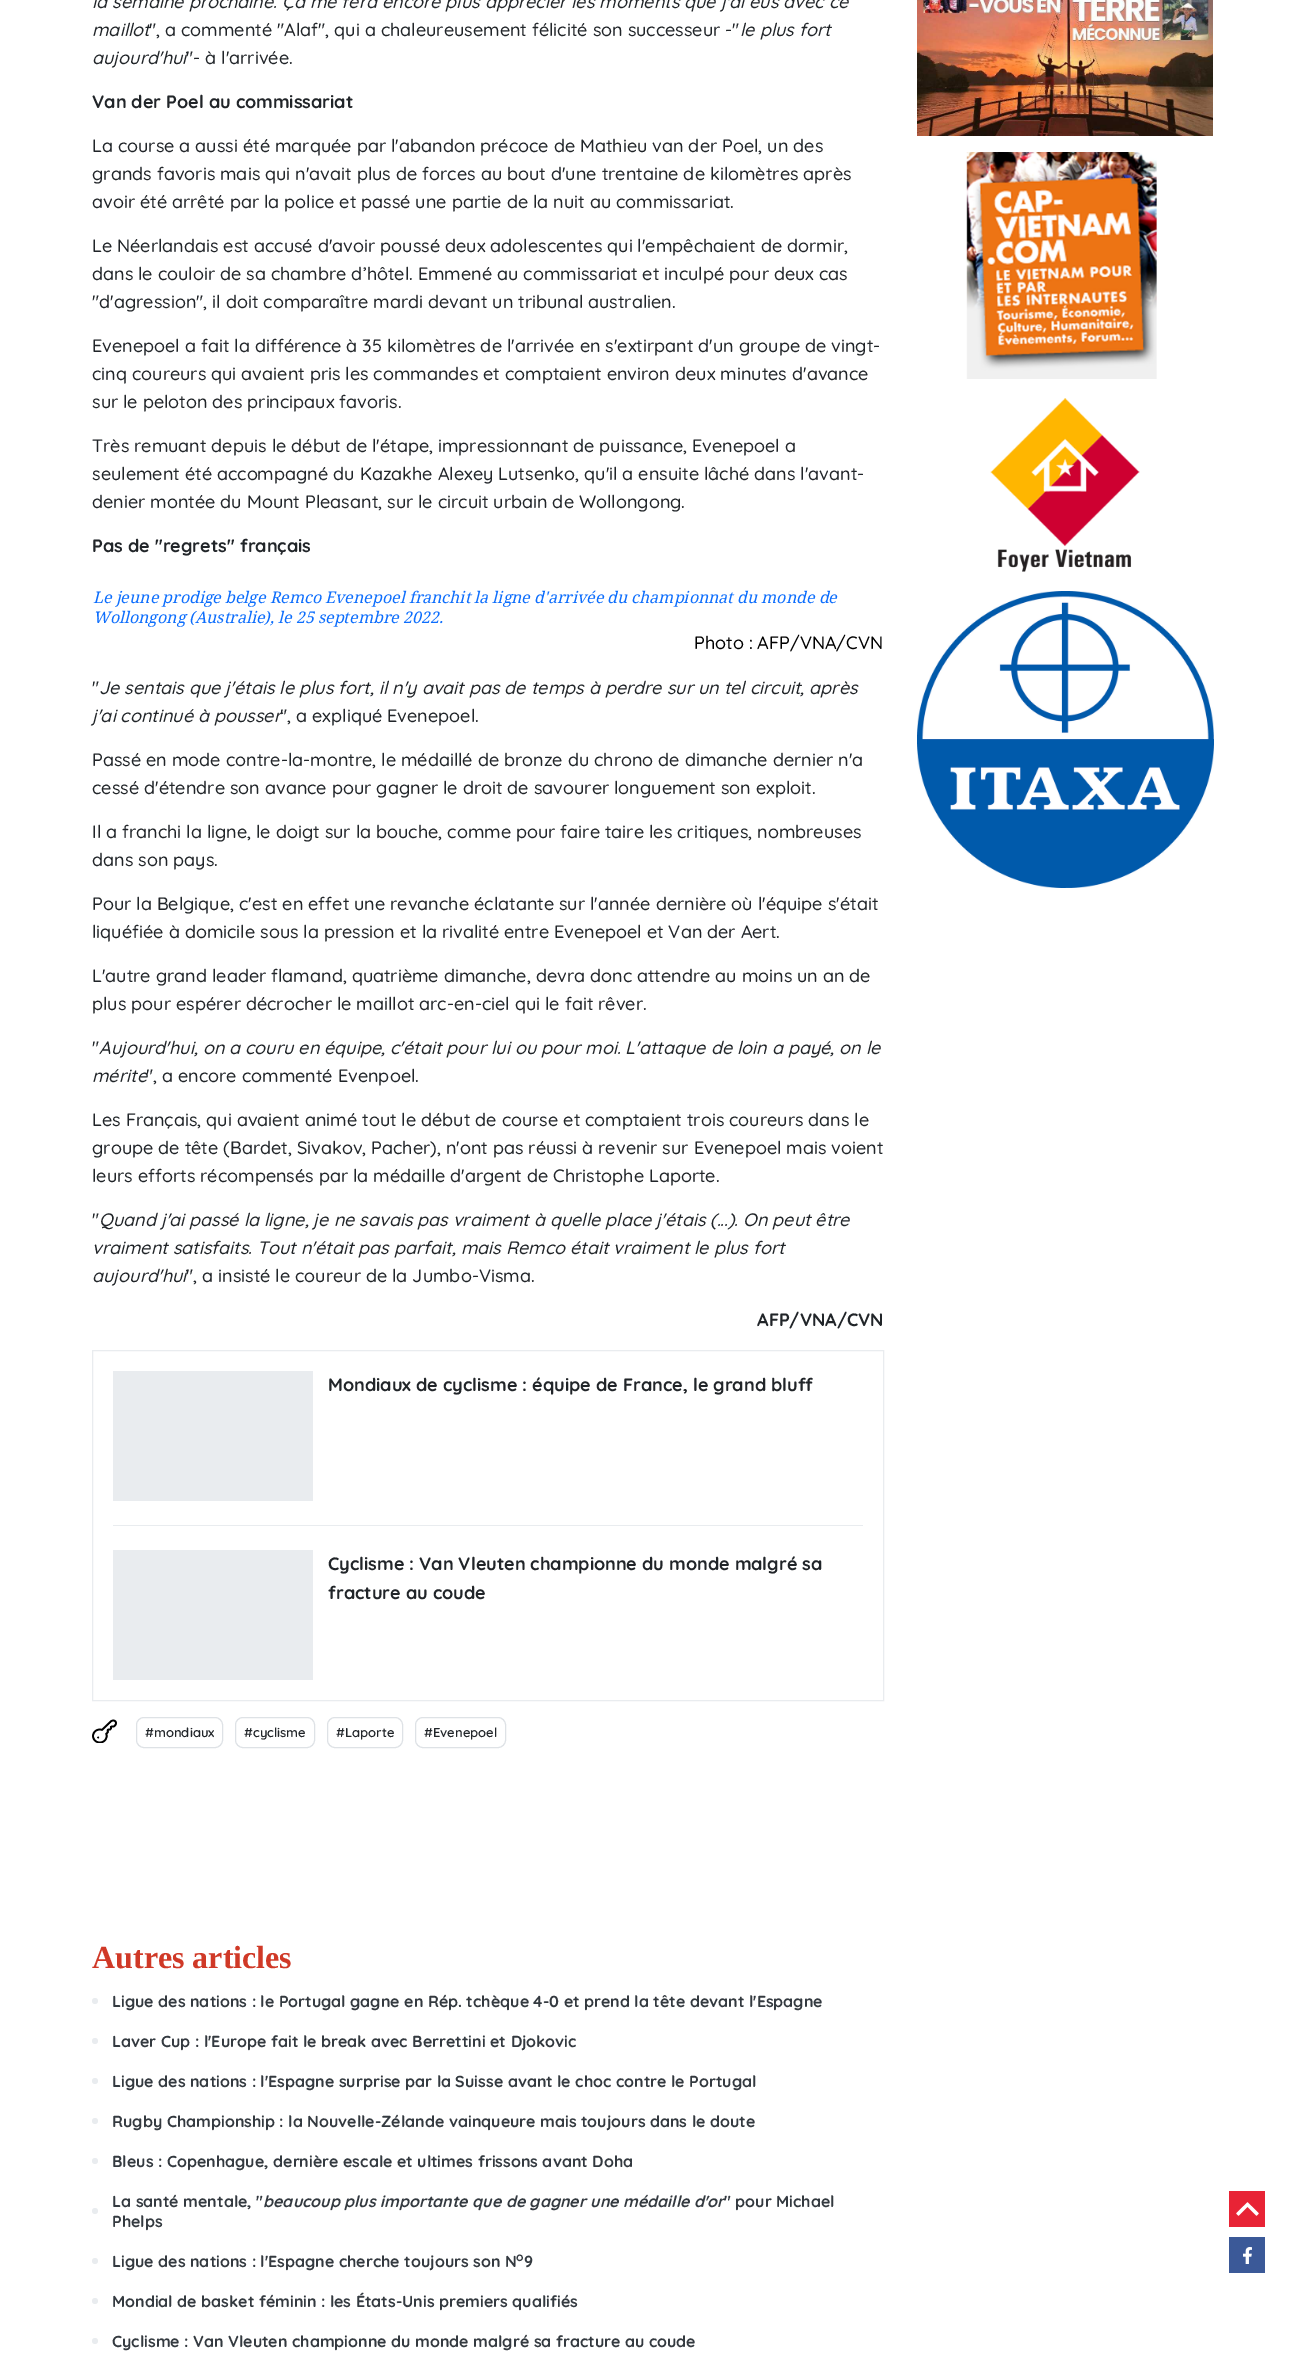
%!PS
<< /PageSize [1305 2373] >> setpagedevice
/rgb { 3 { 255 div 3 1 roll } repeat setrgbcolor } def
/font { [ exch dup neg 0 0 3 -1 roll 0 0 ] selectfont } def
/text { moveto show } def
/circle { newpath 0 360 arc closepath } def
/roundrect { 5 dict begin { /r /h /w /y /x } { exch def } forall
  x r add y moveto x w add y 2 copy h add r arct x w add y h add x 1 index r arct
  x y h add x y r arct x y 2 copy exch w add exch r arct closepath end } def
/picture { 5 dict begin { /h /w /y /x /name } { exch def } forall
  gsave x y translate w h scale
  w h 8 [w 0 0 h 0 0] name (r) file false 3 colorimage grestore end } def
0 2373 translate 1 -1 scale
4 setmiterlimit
255 255 255 rgb
0 0 1305 2373 rectfill
233 236 239 rgb
92.5 1350.5 791 350 rectstroke
113 1371 200 130 rectfill
113 1525 750 1 rectfill
113 1550 200 130 rectfill
(img_01.rgb) 92 1719 25 24 picture
222 226 230 rgb
136.5 1717.5 86 30 7.5 roundrect stroke
235.5 1717.5 79 30 7.5 roundrect stroke
327.5 1717.5 75 30 7.5 roundrect stroke
415.5 1717.5 90 30 7.5 roundrect stroke
233 236 239 rgb
95 2001 3 circle fill
95 2041 3 circle fill
95 2081 3 circle fill
95 2121 3 circle fill
95 2161 3 circle fill
95 2211 3 circle fill
95 2261 3 circle fill
95 2301 3 circle fill
95 2341 3 circle fill
(img_02.rgb) 917 0 296 136 picture
(img_03.rgb) 966 152 191 227 picture
(img_04.rgb) 990 398 150 174 picture
(img_05.rgb) 917 591 297 297 picture
232 35 53 rgb
1229 2191 36 36 rectfill
(img_06.rgb) 1236 2202 23 14 picture
59 89 152 rgb
1229 2237 36 36 rectfill
(img_07.rgb) 1243 2247 9 17 picture
/Quicksand-MediumItalic 18 font
33 37 41 rgb
(la semaine prochaine. Ça me fera encore plus apprécier les moments que j'ai eus avec ce) 92 8 text
(maillot) 92 36 text
/Quicksand-Medium 18 font
(", a commenté "Alaf", qui a chaleureusement félicité son successeur -") 149 36 text
/Quicksand-MediumItalic 18 font
(le plus fort) 740 36 text
(aujourd'hui) 92 64 text
/Quicksand-Medium 18 font
("- à l'arrivée.) 186 64 text
/Quicksand-Bold 18 font
(Van der Poel au commissariat) 92 108 text
/Quicksand-Medium 18 font
(La course a aussi été marquée par l'abandon précoce de Mathieu van der Poel, un des) 92 152 text
(grands favoris mais qui n'avait plus de forces au bout d'une trentaine de kilomètres après) 92 180 text
(avoir été arrêté par la police et passé une partie de la nuit au commissariat.) 92 208 text
(Le Néerlandais est accusé d'avoir poussé deux adolescentes qui l'empêchaient de dormir,) 92 252 text
(dans le couloir de sa chambre d’hôtel. Emmené au commissariat et inculpé pour deux cas) 92 280 text
("d'agression", il doit comparaître mardi devant un tribunal australien.) 92 308 text
(Evenepoel a fait la différence à 35 kilomètres de l'arrivée en s'extirpant d'un groupe de vingt-) 92 352 text
(cinq coureurs qui avaient pris les commandes et comptaient environ deux minutes d'avance) 92 380 text
(sur le peloton des principaux favoris.) 92 408 text
(Très remuant depuis le début de l'étape, impressionnant de puissance, Evenepoel a) 92 452 text
(seulement été accompagné du Kazakhe Alexey Lutsenko, qu'il a ensuite lâché dans l'avant-) 92 480 text
(denier montée du Mount Pleasant, sur le circuit urbain de Wollongong.) 92 508 text
/Quicksand-Bold 18 font
(Pas de "regrets" français) 92 552 text
/NotoSerif-Italic 16 font
13 110 253 rgb
(Le jeune prodige belge Remco Evenepoel franchit la ligne d'arrivée du championnat du monde de) 93 603 text
(Wollongong \(Australie\), le 25 septembre 2022.) 93 623 text
/Quicksand-Medium 18 font
0 0 0 rgb
(Photo : AFP/VNA/CVN) 694 649 text
33 37 41 rgb
(") 92 694 text
/Quicksand-MediumItalic 18 font
(Je sentais que j'étais le plus fort, il n'y avait pas de temps à perdre sur un tel circuit, après) 99 694 text
(j'ai continué à pousser) 92 722 text
/Quicksand-Medium 18 font
(", a expliqué Evenepoel.) 280 722 text
(Passé en mode contre-la-montre, le médaillé de bronze du chrono de dimanche dernier n'a) 92 766 text
(cessé d'étendre son avance pour gagner le droit de savourer longuement son exploit.) 92 794 text
(Il a franchi la ligne, le doigt sur la bouche, comme pour faire taire les critiques, nombreuses) 92 838 text
(dans son pays.) 92 866 text
(Pour la Belgique, c'est en effet une revanche éclatante sur l'année dernière où l'équipe s'était) 92 910 text
(liquéfiée à domicile sous la pression et la rivalité entre Evenepoel et Van der Aert.) 92 938 text
(L'autre grand leader flamand, quatrième dimanche, devra donc attendre au moins un an de) 92 982 text
(plus pour espérer décrocher le maillot arc-en-ciel qui le fait rêver.) 92 1010 text
(") 92 1054 text
/Quicksand-MediumItalic 18 font
(Aujourd'hui, on a couru en équipe, c'était pour lui ou pour moi. L'attaque de loin a payé, on le) 99 1054 text
(mérite) 92 1082 text
/Quicksand-Medium 18 font
(", a encore commenté Evenpoel.) 146 1082 text
(Les Français, qui avaient animé tout le début de course et comptaient trois coureurs dans le) 92 1126 text
(groupe de tête \(Bardet, Sivakov, Pacher\), n'ont pas réussi à revenir sur Evenepoel mais voient) 92 1154 text
(leurs efforts récompensés par la médaille d'argent de Christophe Laporte.) 92 1182 text
(") 92 1226 text
/Quicksand-MediumItalic 18 font
(Quand j'ai passé la ligne, je ne savais pas vraiment à quelle place j'étais \(...\). On peut être) 99 1226 text
(vraiment satisfaits. Tout n'était pas parfait, mais Remco était vraiment le plus fort) 92 1254 text
(aujourd'hui) 92 1282 text
/Quicksand-Medium 18 font
(", a insisté le coureur de la Jumbo-Visma.) 186 1282 text
/Quicksand-Bold 18 font
(AFP/VNA/CVN) 757 1326 text
(Mondiaux de cyclisme : équipe de France, le grand bluff) 328 1391 text
(Cyclisme : Van Vleuten championne du monde malgré sa) 328 1570 text
(fracture au coude) 328 1599 text
/Quicksand-SemiBold 13 font
(#mondiaux) 145 1737 text
(#cyclisme) 244 1737 text
(#Laporte) 336 1737 text
(#Evenepoel) 424 1737 text
/LiberationSerif-Bold 32 font
208 57 39 rgb
(Autres articles) 92 1968 text
/Quicksand-Bold 16 font
52 58 64 rgb
(Ligue des nations : le Portugal gagne en Rép. tchèque 4-0 et prend la tête devant l'Espagne) 112 2007 text
(Laver Cup : l'Europe fait le break avec Berrettini et Djokovic) 112 2047 text
(Ligue des nations : l'Espagne surprise par la Suisse avant le choc contre le Portugal) 112 2087 text
(Rugby Championship : la Nouvelle-Zélande vainqueure mais toujours dans le doute) 112 2127 text
(Bleus : Copenhague, dernière escale et ultimes frissons avant Doha) 112 2167 text
(La santé mentale, ") 112 2207 text
/Quicksand-BoldItalic 16 font
(beaucoup plus importante que de gagner une médaille d'or) 263 2207 text
/Quicksand-Bold 16 font
(" pour Michael) 724 2207 text
(Phelps) 112 2227 text
(Ligue des nations : l'Espagne cherche toujours son N) 112 2267 text
/Quicksand-Bold 12 font
(o) 516 2261 text
/Quicksand-Bold 16 font
(9) 524 2267 text
(Mondial de basket féminin : les États-Unis premiers qualifiés) 112 2307 text
(Cyclisme : Van Vleuten championne du monde malgré sa fracture au coude) 112 2347 text
showpage
